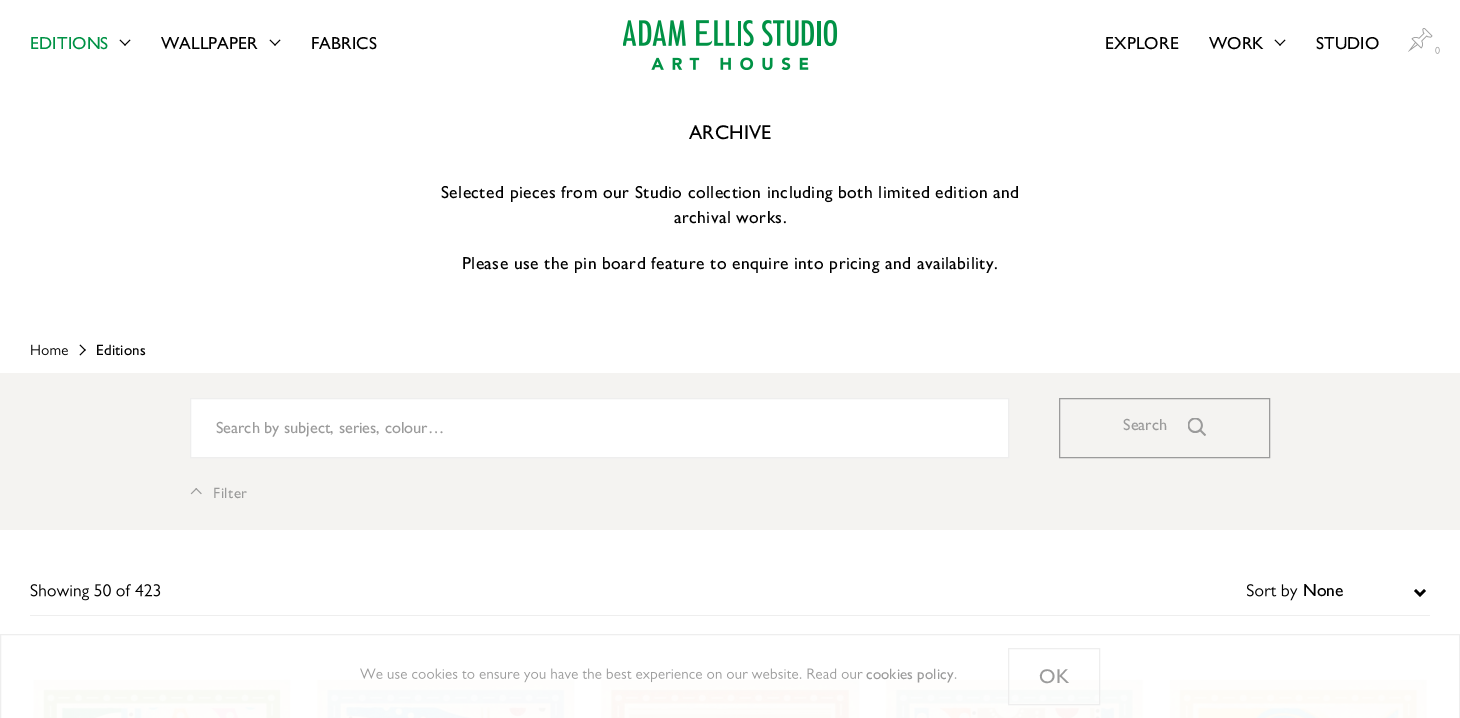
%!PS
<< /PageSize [1460 718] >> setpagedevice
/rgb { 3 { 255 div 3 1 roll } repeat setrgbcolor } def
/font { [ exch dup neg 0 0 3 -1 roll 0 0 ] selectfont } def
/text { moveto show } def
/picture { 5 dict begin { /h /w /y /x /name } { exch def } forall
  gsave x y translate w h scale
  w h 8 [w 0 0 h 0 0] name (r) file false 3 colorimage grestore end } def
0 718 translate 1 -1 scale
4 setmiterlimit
255 255 255 rgb
0 0 1460 718 rectfill
(img_01.rgb) 119 39 12 7 picture
(img_01.rgb) 269 39 12 7 picture
(img_02.rgb) 623 20 215 50 picture
(img_01.rgb) 1274 39 12 7 picture
(img_03.rgb) 1408 28 25 24 picture
(img_04.rgb) 1435 46 5 8 picture
(img_05.rgb) 31 344 37 12 picture
(img_06.rgb) 79 344 7 12 picture
244 243 241 rgb
0 373 1460 157 rectfill
255 255 255 rgb
190.5 398.5 moveto 818 0 rlineto 0 59 rlineto -818 0 rlineto closepath gsave fill grestore
238 238 238 rgb
stroke
(img_07.rgb) 190 488 12 7 picture
155 155 155 rgb
1059.5 398.5 210 59 rectstroke
(img_08.rgb) 1188 418 18 18 picture
238 238 238 rgb
30 615 1400 1 rectfill
(img_09.rgb) 30 584 59 17 picture
(img_10.rgb) 94 584 17 13 picture
(img_11.rgb) 116 584 15 13 picture
(img_12.rgb) 135 584 26 13 picture
(img_13.rgb) 1247 584 51 17 picture
0 0 0 rgb
2.5 setlinewidth
1415 590 moveto 5 5 rlineto 5 -5 rlineto stroke
(img_14.rgb) 30 676 264 42 picture
(img_15.rgb) 315 677 261 41 picture
(img_16.rgb) 598 677 263 41 picture
(img_17.rgb) 884 677 262 41 picture
(img_18.rgb) 1168 677 262 41 picture
238 238 238 rgb
1 setlinewidth
0.5 634.5 1459 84 rectstroke
(img_19.rgb) 360 668 503 15 picture
1008.5 648.5 91 56 rectstroke
/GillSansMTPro-Medium 17.5 font
0 146 69 rgb
30 49 moveto 0.1 0 (EDITIONS) ashow
0 0 0 rgb
161 49 moveto 0.1 0 (WALLPAPER) ashow
311 49 moveto 0.1 0 (FABRICS) ashow
1105 49 moveto 0.1 0 (EXPLORE) ashow
1209 49 moveto 0.1 0 (WORK) ashow
1316 49 moveto 0.1 0 (STUDIO) ashow
/GillSansMTPro-Medium 20 font
689 139 moveto 0.1 0 (ARCHIVE) ashow
/GillSansMTPro-Medium 17.5 font
441 198 moveto 0.45 0 (Selected pieces from our Studio collection including both limited edition and) ashow
674 223 moveto 0.45 0 (archival works.) ashow
462 269 moveto 0.45 0 (Please use the pin board feature to enquire into pricing and availability.) ashow
/GillSansMTPro-Medium 15 font
96 355 moveto 0.1 0 (Editions) ashow
/GillSansMTPro-Medium 16.25 font
155 155 155 rgb
(Search by subject, series, colour…) 216 433 text
/GillSansMTPro-Medium 15 font
213 498 moveto 0.5 0 (Filter) ashow
/GillSansMTPro-Medium 16.25 font
1123 430 moveto 0.1 0 (Search) ashow
/GillSansMTPro-Medium 17.5 font
0 0 0 rgb
(None) 1303 596 text
/GillSansMTPro-Medium 15 font
155 155 155 rgb
866 679 moveto 0.1 0 (cookies policy) ashow
(img_20.rgb) 954 677 3 2 picture
/GillSansMTPro-Medium 20 font
1039 683 moveto 0.1 0 (OK) ashow
showpage
